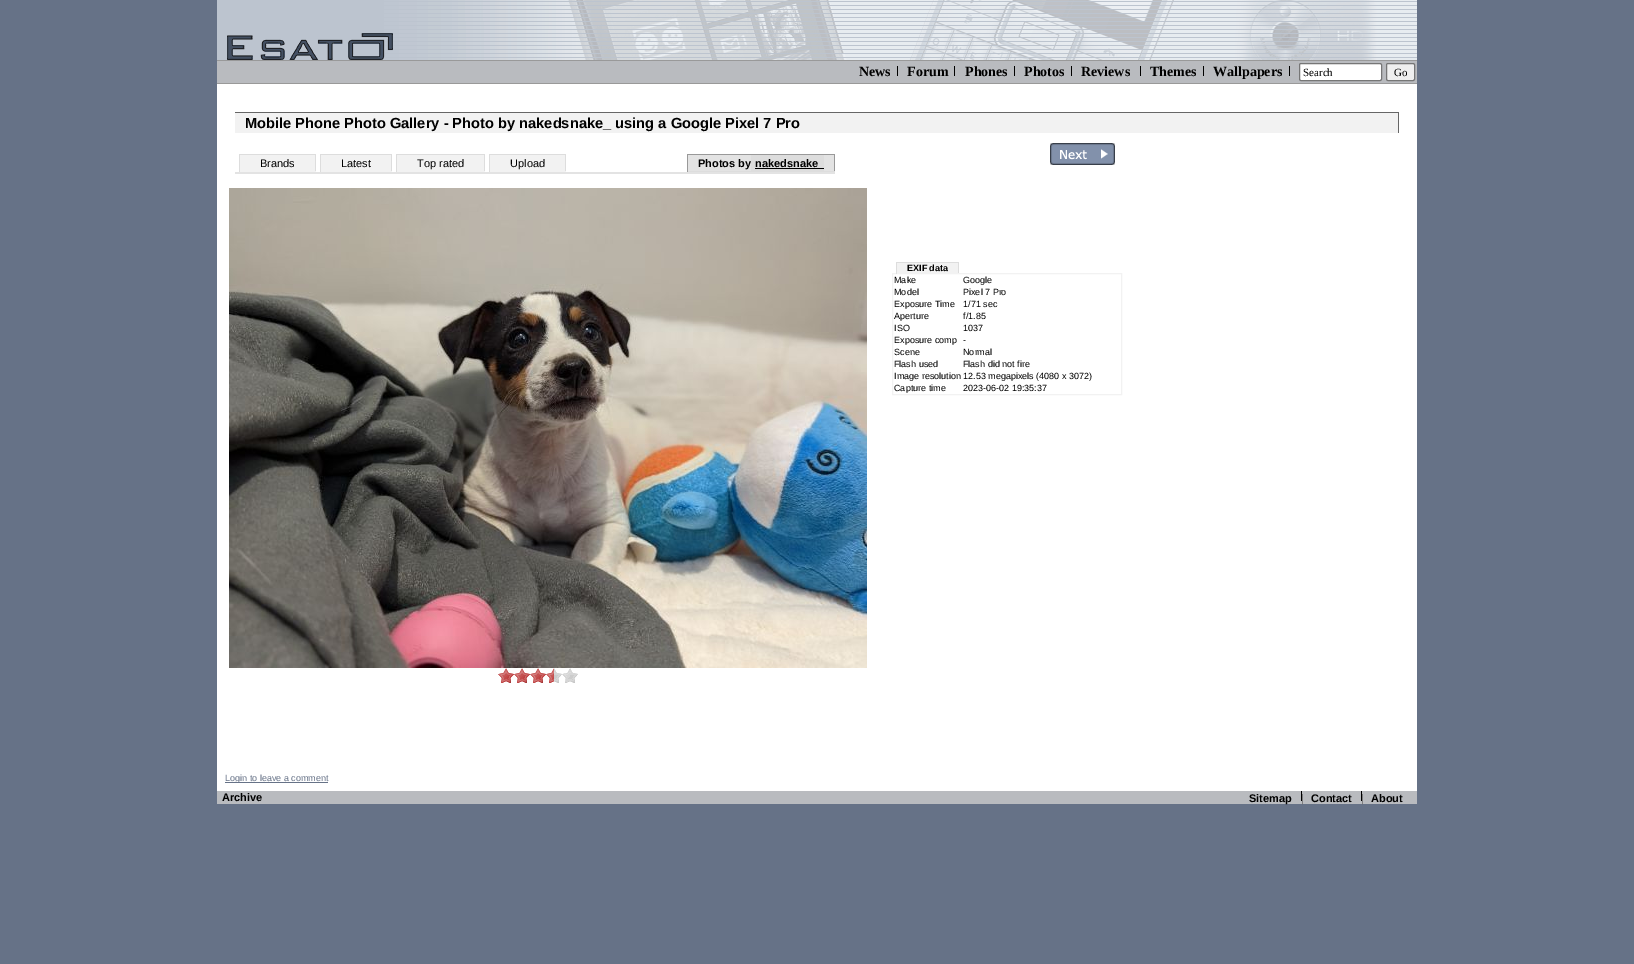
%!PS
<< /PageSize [1634 964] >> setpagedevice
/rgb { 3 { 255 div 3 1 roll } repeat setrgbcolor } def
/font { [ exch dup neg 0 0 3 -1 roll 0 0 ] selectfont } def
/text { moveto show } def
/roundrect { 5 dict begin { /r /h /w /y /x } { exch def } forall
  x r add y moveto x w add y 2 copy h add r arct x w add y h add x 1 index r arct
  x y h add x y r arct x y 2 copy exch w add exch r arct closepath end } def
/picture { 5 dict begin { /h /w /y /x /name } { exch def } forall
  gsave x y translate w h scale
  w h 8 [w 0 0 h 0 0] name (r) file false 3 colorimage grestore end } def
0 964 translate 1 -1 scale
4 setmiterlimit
102 114 135 rgb
0 0 1634 964 rectfill
(img_01.rgb) 217 0 1200 60 picture
185 187 191 rgb
217 61 1200 22 rectfill
153 153 153 rgb
217 60 1200 1 rectfill
217 83 1200 1 rectfill
0 0 0 rgb
897 66 1 10 rectfill
954 66 1 10 rectfill
1014 66 1 10 rectfill
1071 66 1 10 rectfill
1140 66 1 10 rectfill
1203 66 1 10 rectfill
1289 66 1 10 rectfill
255 255 255 rgb
1299.5 63.5 82 17 1.5 roundrect gsave fill grestore
118 118 118 rgb
stroke
239 239 239 rgb
1386.5 63.5 28 17 1.5 roundrect gsave fill grestore
118 118 118 rgb
stroke
255 255 255 rgb
217 84 1200 707 rectfill
242 242 242 rgb
235 113 1163 20 rectfill
102 102 102 rgb
235 112 1164 1 rectfill
1398 112 1 21 rectfill
227 227 227 rgb
235 172 600 2 rectfill
242 242 242 rgb
240 155 75 16 rectfill
221 221 221 rgb
239 154 77 1 rectfill
315 154 1 18 rectfill
242 242 242 rgb
239 171 77 1 rectfill
221 221 221 rgb
239 154 1 18 rectfill
242 242 242 rgb
321 155 70 16 rectfill
221 221 221 rgb
320 154 72 1 rectfill
391 154 1 18 rectfill
242 242 242 rgb
320 171 72 1 rectfill
221 221 221 rgb
320 154 1 18 rectfill
242 242 242 rgb
397 155 87 16 rectfill
221 221 221 rgb
396 154 89 1 rectfill
484 154 1 18 rectfill
242 242 242 rgb
396 171 89 1 rectfill
221 221 221 rgb
396 154 1 18 rectfill
242 242 242 rgb
490 155 75 16 rectfill
221 221 221 rgb
489 154 77 1 rectfill
565 154 1 18 rectfill
242 242 242 rgb
489 171 77 1 rectfill
221 221 221 rgb
489 154 1 18 rectfill
227 227 227 rgb
688 155 146 16 rectfill
153 153 153 rgb
687 154 148 1 rectfill
834 154 1 18 rectfill
221 221 221 rgb
687 171 148 1 rectfill
153 153 153 rgb
687 154 1 18 rectfill
221 221 221 rgb
751 155 73 16 rectfill
0 0 0 rgb
755 168 69 1 rectfill
(img_02.rgb) 1050 143 65 22 picture
(img_03.rgb) 229 188 638 480 picture
(img_04.rgb) 498 668 8 15 picture
(img_05.rgb) 506 668 8 15 picture
(img_04.rgb) 514 668 8 15 picture
(img_05.rgb) 522 668 8 15 picture
(img_04.rgb) 530 668 8 15 picture
(img_05.rgb) 538 668 8 15 picture
(img_04.rgb) 546 668 8 15 picture
(img_06.rgb) 554 668 8 15 picture
(img_07.rgb) 562 668 8 15 picture
(img_06.rgb) 570 668 8 15 picture
242 242 242 rgb
897 263 61 10 rectfill
221 221 221 rgb
896 262 63 1 rectfill
242 242 242 rgb
892.5 273.5 229 121 rectstroke
221 221 221 rgb
958 262 1 12 rectfill
242 242 242 rgb
958 273 1 1 rectfill
221 221 221 rgb
896 262 1 12 rectfill
102 114 135 rgb
225 782 103 1 rectfill
185 187 191 rgb
217 791 1200 13 rectfill
0 0 0 rgb
1301 791 1 10 rectfill
1361 791 1 10 rectfill
/LiberationSerif-Bold 14 font
(News) 859 76 text
(Forum) 907 76 text
(Phones) 965 76 text
(Photos) 1024 76 text
(Reviews) 1081 76 text
(Themes) 1150 76 text
(Wallpapers) 1213 76 text
/LiberationSerif-Regular 11 font
(Search) 1303 76 text
(Go) 1394 76 text
/LiberationSans-Bold 14.65 font
(Mobile Phone Photo Gallery - Photo by nakedsnake_ using a Google Pixel 7 Pro) 245 128 text
/LiberationSans-Regular 11 font
(Brands) 260 167 text
(Latest) 341 167 text
(Top rated) 417 167 text
(Upload) 510 167 text
/LiberationSans-Bold 11 font
(Photos by) 698 167 text
(nakedsnake) 755 167 text
/LiberationSans-Bold 9 font
(EXIF data) 907 271 text
/LiberationSans-Regular 9 font
(Make) 894 283 text
(Google) 963 283 text
(Model) 894 295 text
(Pixel 7 Pro) 963 295 text
(Exposure Time) 894 307 text
(1/71 sec) 963 307 text
(Aperture) 894 319 text
(f/1.85) 963 319 text
(ISO) 894 331 text
(1037) 963 331 text
(Exposure comp) 894 343 text
(-) 963 343 text
(Scene) 894 355 text
(Normal) 963 355 text
(Flash used) 894 367 text
(Flash did not fire) 963 367 text
(Image resolution) 894 379 text
(12.53 megapixels \(4080 x 3072\)) 963 379 text
(Capture time) 894 391 text
(2023-06-02 19:35:37) 963 391 text
102 114 135 rgb
(Login to leave a comment) 225 781 text
/LiberationSans-Bold 11 font
0 0 0 rgb
(Archive) 222 801 text
(Sitemap) 1249 802 text
/LiberationSans-Regular 11 font
102 102 102 rgb
(|) 1301 802 text
/LiberationSans-Bold 11 font
0 0 0 rgb
(Contact) 1311 802 text
/LiberationSans-Regular 11 font
102 102 102 rgb
(|) 1361 802 text
/LiberationSans-Bold 11 font
0 0 0 rgb
(About) 1371 802 text
showpage
